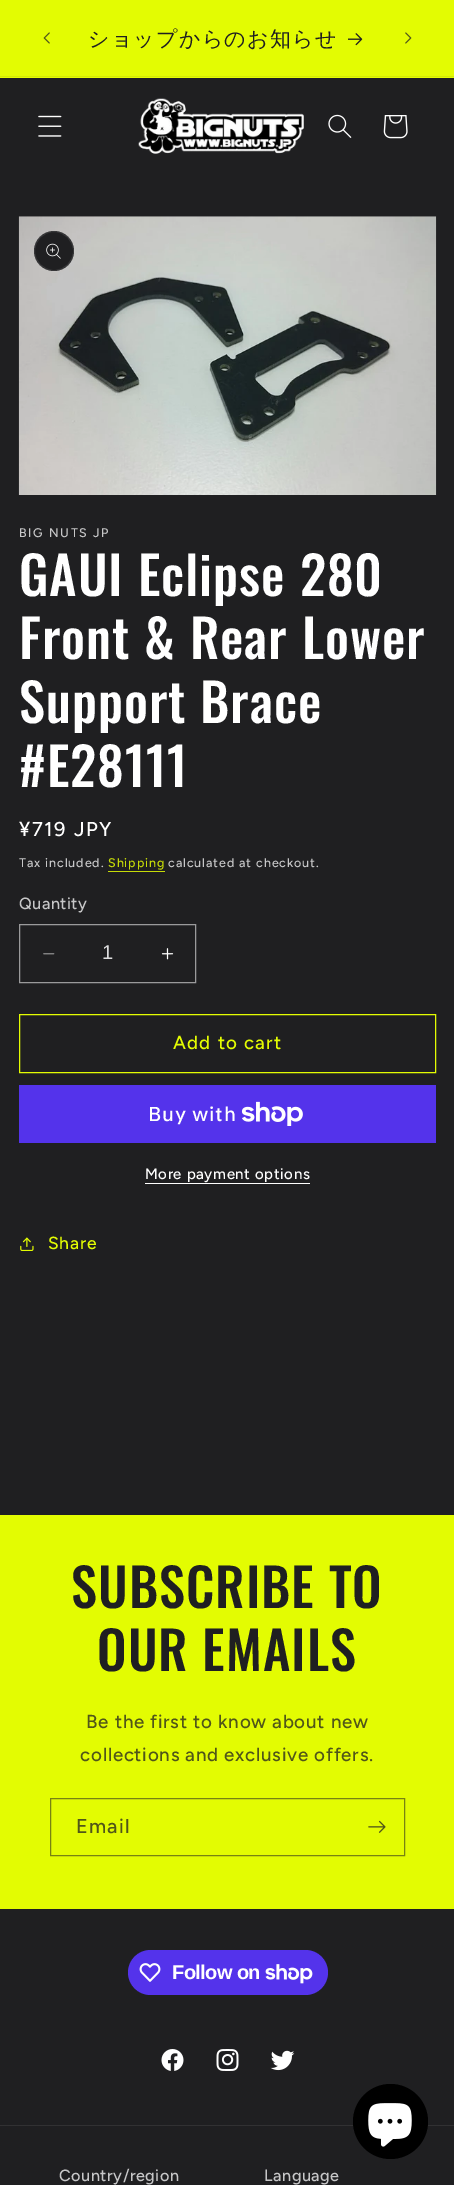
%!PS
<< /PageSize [454 2185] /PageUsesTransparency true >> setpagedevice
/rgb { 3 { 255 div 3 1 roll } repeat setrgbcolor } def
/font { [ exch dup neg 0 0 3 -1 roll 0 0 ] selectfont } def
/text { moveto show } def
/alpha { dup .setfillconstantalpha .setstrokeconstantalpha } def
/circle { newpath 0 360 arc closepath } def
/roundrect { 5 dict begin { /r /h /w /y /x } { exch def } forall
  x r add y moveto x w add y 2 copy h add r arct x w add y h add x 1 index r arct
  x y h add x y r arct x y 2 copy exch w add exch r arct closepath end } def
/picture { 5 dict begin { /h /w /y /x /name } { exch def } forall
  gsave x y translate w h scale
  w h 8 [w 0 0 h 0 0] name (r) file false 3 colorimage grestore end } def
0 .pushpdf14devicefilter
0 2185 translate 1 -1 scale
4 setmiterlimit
31 31 33 rgb
0 0 454 2185 rectfill
227 252 2 rgb
0 0 454 78 rectfill
211 234 4 rgb
0 76 454 1 rectfill
(img_01.rgb) 43 32 7 12 picture
(img_02.rgb) 348 33 15 13 picture
(img_03.rgb) 405 32 7 12 picture
(img_04.rgb) 38 115 24 22 picture
(img_05.rgb) 138 98 166 56 picture
(img_06.rgb) 328 114 24 24 picture
(img_07.rgb) 383 115 25 24 picture
(img_08.rgb) 18 216 419 279 picture
31 31 33 rgb
54 251 20 circle fill
0.1 alpha
255 255 255 rgb
54 251 19.5 circle stroke
1 alpha
(img_09.rgb) 46 243 15 16 picture
198 219 7 rgb
108 871 57 1 rectfill
(img_10.rgb) 43 953 12 2 picture
(img_11.rgb) 161 948 13 12 picture
154 154 155 rgb
19.5 924.5 176 58 rectstroke
227 252 2 rgb
19.5 1014.5 416 58 rectstroke
84 51 235 rgb
19 1085 417 58 rectfill
(img_12.rgb) 241 1101 62 25 picture
255 255 255 rgb
145 1183 165 1 rectfill
(img_13.rgb) 20 1237 14 14 picture
227 252 2 rgb
0 1515 454 394 rectfill
119 130 19 rgb
50.5 1798.5 354 57 rectstroke
(img_14.rgb) 368 1820 18 13 picture
84 51 235 rgb
128 1950 200 45 22.5 roundrect fill
(img_15.rgb) 139 1963 22 19 picture
(img_16.rgb) 265 1964 48 20 picture
(img_17.rgb) 161 2049 23 22 picture
(img_18.rgb) 216 2049 23 22 picture
(img_19.rgb) 270 2050 25 21 picture
49 49 51 rgb
0 2125 454 1 rectfill
0 0 0 rgb
390.5 2121.5 37.5 circle fill
(img_20.rgb) 368 2103 44 44 picture
/WenQuanYiZenHei-Medium 21 font
31 31 33 rgb
88 46 moveto 1.25 0 (ショップからのお知らせ) ashow
/Figtree-Medium 12.5 font
199 199 200 rgb
19 537 moveto 1.6 0 (BIG NUTS JP) ashow
/Oswald-Medium 52.5 font
255 255 255 rgb
19 596 moveto 1 0 (GAUI Eclipse 280) ashow
19 659 moveto 1 0 (Front & Rear Lower) ashow
19 723 moveto 1 0 (Support Brace) ashow
19 787 moveto 1 0 (#E28111) ashow
/Figtree-Medium 20 font
19 836 moveto 1.6 0 (¥719 JPY) ashow
/Figtree-Medium 12.5 font
199 199 200 rgb
19 867 moveto 0.9 0 (Tax included.) ashow
198 219 7 rgb
108 867 moveto 0.9 0 (Shipping) ashow
199 199 200 rgb
168 867 moveto 0.9 0 (calculated at checkout.) ashow
/Figtree-Medium 16.25 font
19 909 moveto 0.5 0 (Quantity) ashow
/LiberationSans-Regular 20 font
221 221 222 rgb
(1) 102 959 text
/Figtree-Medium 18.75 font
227 252 2 rgb
173 1049 moveto 1.25 0 (Add to cart) ashow
/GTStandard-Medium 20 font
255 255 255 rgb
148 1121 moveto 0.75 0 (Buy with) ashow
/Figtree-Medium 15 font
145 1179 moveto 0.6 0 (More payment options) ashow
/Figtree-Medium 17.5 font
227 252 2 rgb
48 1249 moveto 0.75 0 (Share) ashow
/Oswald-Medium 52.5 font
31 31 33 rgb
71 1608 moveto 1 0 (SUBSCRIBE TO) ashow
97 1671 moveto 1 0 (OUR EMAILS) ashow
/Figtree-Medium 18.75 font
80 86 25 rgb
86 1728 moveto 0.75 0 (Be the first to know about new) ashow
80 1761 moveto 0.75 0 (collections and exclusive offers.) ashow
/Figtree-Medium 20 font
76 1833 moveto 1.25 0 (Email) ashow
/LiberationSans-Bold 20 font
255 255 255 rgb
172 1979 moveto -0.6 0 (Follow on) ashow
/Figtree-Medium 16.25 font
199 199 200 rgb
59 2181 moveto 0.5 0 (Country/region) ashow
264 2181 moveto 0.5 0 (Language) ashow
.poppdf14devicefilter showpage
